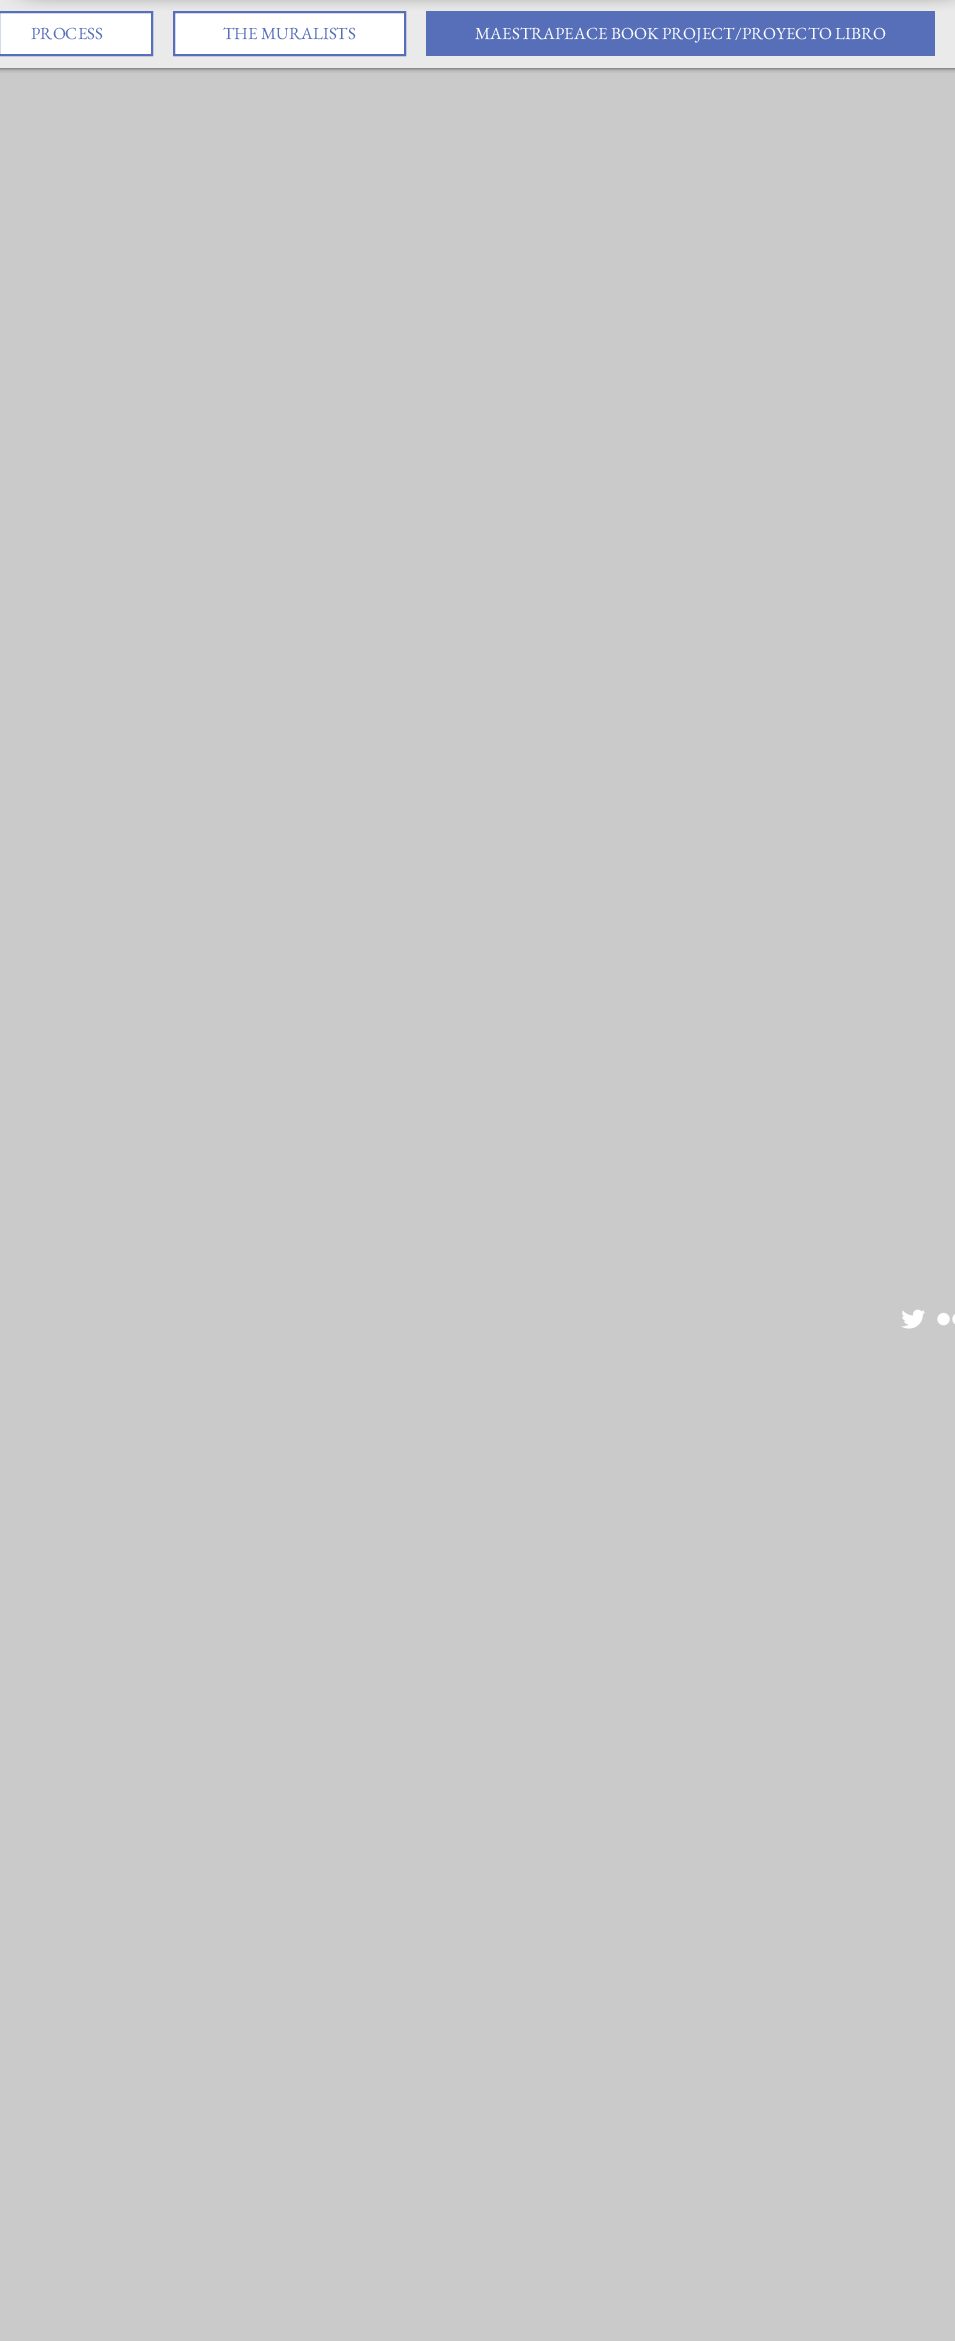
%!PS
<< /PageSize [955 2341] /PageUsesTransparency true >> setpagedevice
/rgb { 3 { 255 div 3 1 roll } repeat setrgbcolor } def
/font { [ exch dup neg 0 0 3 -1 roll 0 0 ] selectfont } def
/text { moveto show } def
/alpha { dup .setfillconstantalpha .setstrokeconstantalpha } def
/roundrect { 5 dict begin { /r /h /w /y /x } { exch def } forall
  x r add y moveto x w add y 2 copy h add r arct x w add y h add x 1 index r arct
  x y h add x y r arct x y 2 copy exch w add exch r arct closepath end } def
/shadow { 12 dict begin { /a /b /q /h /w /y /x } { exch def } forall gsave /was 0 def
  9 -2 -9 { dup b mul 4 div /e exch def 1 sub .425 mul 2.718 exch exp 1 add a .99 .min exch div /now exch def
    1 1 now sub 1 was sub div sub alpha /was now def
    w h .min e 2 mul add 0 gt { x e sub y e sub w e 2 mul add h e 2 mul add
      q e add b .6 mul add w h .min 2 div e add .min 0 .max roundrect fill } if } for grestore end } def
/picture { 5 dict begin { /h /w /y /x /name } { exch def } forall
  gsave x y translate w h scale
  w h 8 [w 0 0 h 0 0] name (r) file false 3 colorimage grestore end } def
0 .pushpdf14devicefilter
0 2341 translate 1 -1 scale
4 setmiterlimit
202 202 202 rgb
0 0 955 2341 rectfill
234 234 234 rgb
0 0 955 68 rectfill
(img_01.rgb) 3 0 97 11 picture
(img_02.rgb) 100 0 780 11 picture
(img_03.rgb) 880 0 75 11 picture
gsave
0 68 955 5 rectclip
0 0 0 rgb
0 0 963 68 0 2.5 0.7 shadow
grestore
255 255 255 rgb
-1 12 moveto 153 0 rlineto 0 43 rlineto -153 0 rlineto closepath gsave fill grestore
86 111 184 rgb
2 setlinewidth
stroke
255 255 255 rgb
174 12 moveto 231 0 rlineto 0 43 rlineto -231 0 rlineto closepath gsave fill grestore
86 111 184 rgb
stroke
426 11 509 45 rectfill
(img_04.rgb) 901 1309 24 20 picture
(img_05.rgb) 937 1312 18 14 picture
/EBGaramond-Regular 17 font
(PROCESS) 31 39 text
(THE MURALISTS) 223 39 text
255 255 255 rgb
(MAESTRAPEACE BOOK PROJECT/PROYECTO LIBRO) 475 39 text
.poppdf14devicefilter showpage
